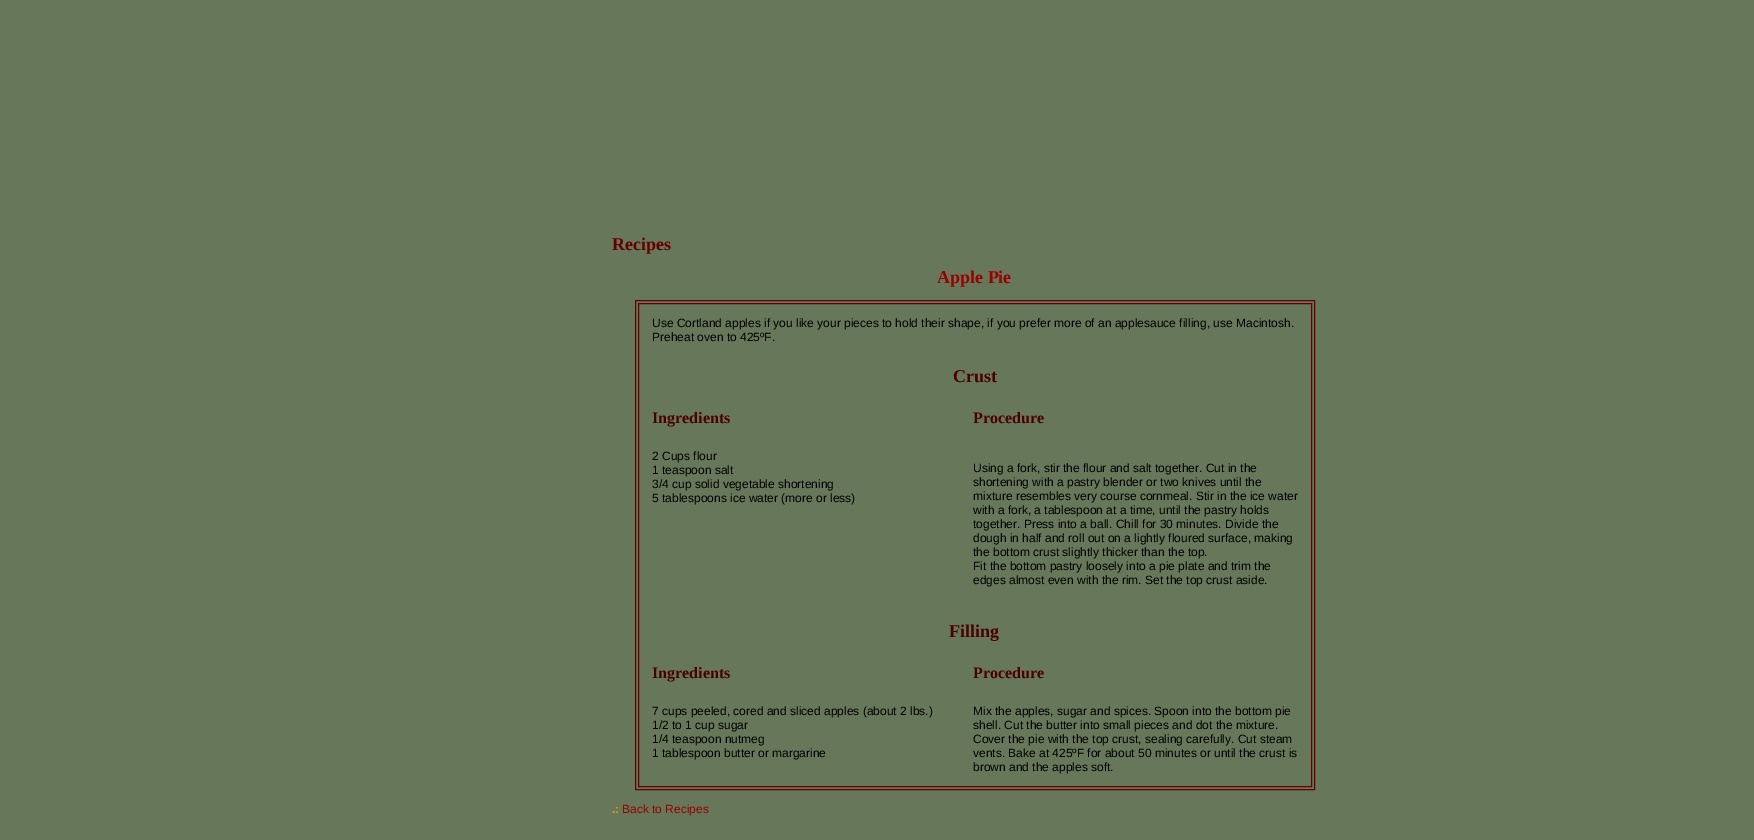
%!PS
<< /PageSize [1754 840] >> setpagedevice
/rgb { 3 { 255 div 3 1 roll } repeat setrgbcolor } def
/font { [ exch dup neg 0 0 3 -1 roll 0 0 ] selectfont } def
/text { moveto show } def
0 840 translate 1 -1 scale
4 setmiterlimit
103 119 90 rgb
0 0 1754 840 rectfill
102 0 0 rgb
635.5 300.5 679 489 rectstroke
638.5 303.5 673 483 rectstroke
/LiberationSerif-Bold 18 font
(Recipes) 612 250 text
153 0 0 rgb
(Apple Pie) 937 283 text
/LiberationSans-Regular 12 font
0 0 0 rgb
(Use Cortland apples if you like your pieces to hold their shape, if you prefer more of an applesauce filling, use Macintosh.) 652 327 text
(Preheat oven to 425ºF.) 652 341 text
/LiberationSerif-Bold 18 font
73 1 0 rgb
(Crust) 953 382 text
/LiberationSerif-Bold 16 font
(Ingredients) 652 423 text
(Procedure) 973 423 text
/LiberationSans-Regular 12 font
0 0 0 rgb
(2 Cups flour) 652 460 text
(1 teaspoon salt) 652 474 text
(3/4 cup solid vegetable shortening) 652 488 text
(5 tablespoons ice water \(more or less\)) 652 502 text
(Using a fork, stir the flour and salt together. Cut in the) 973 472 text
(shortening with a pastry blender or two knives until the) 973 486 text
(mixture resembles very course cornmeal. Stir in the ice water) 973 500 text
(with a fork, a tablespoon at a time, until the pastry holds) 973 514 text
(together. Press into a ball. Chill for 30 minutes. Divide the) 973 528 text
(dough in half and roll out on a lightly floured surface, making) 973 542 text
(the bottom crust slightly thicker than the top.) 973 556 text
(Fit the bottom pastry loosely into a pie plate and trim the) 973 570 text
(edges almost even with the rim. Set the top crust aside.) 973 584 text
/LiberationSerif-Bold 18 font
73 1 0 rgb
(Filling) 949 637 text
/LiberationSerif-Bold 16 font
(Ingredients) 652 678 text
(Procedure) 973 678 text
/LiberationSans-Regular 12 font
0 0 0 rgb
(7 cups peeled, cored and sliced apples \(about 2 lbs.\)) 652 715 text
(1/2 to 1 cup sugar) 652 729 text
(1/4 teaspoon nutmeg) 652 743 text
(1 tablespoon butter or margarine) 652 757 text
(Mix the apples, sugar and spices. Spoon into the bottom pie) 973 715 text
(shell. Cut the butter into small pieces and dot the mixture.) 973 729 text
(Cover the pie with the top crust, sealing carefully. Cut steam) 973 743 text
(vents. Bake at 425ºF for about 50 minutes or until the crust is) 973 757 text
(brown and the apples soft.) 973 771 text
/LiberationSans-Bold 12 font
255 153 0 rgb
(.:) 612 813 text
/LiberationSans-Regular 12 font
153 0 0 rgb
(Back to Recipes) 622 813 text
showpage
